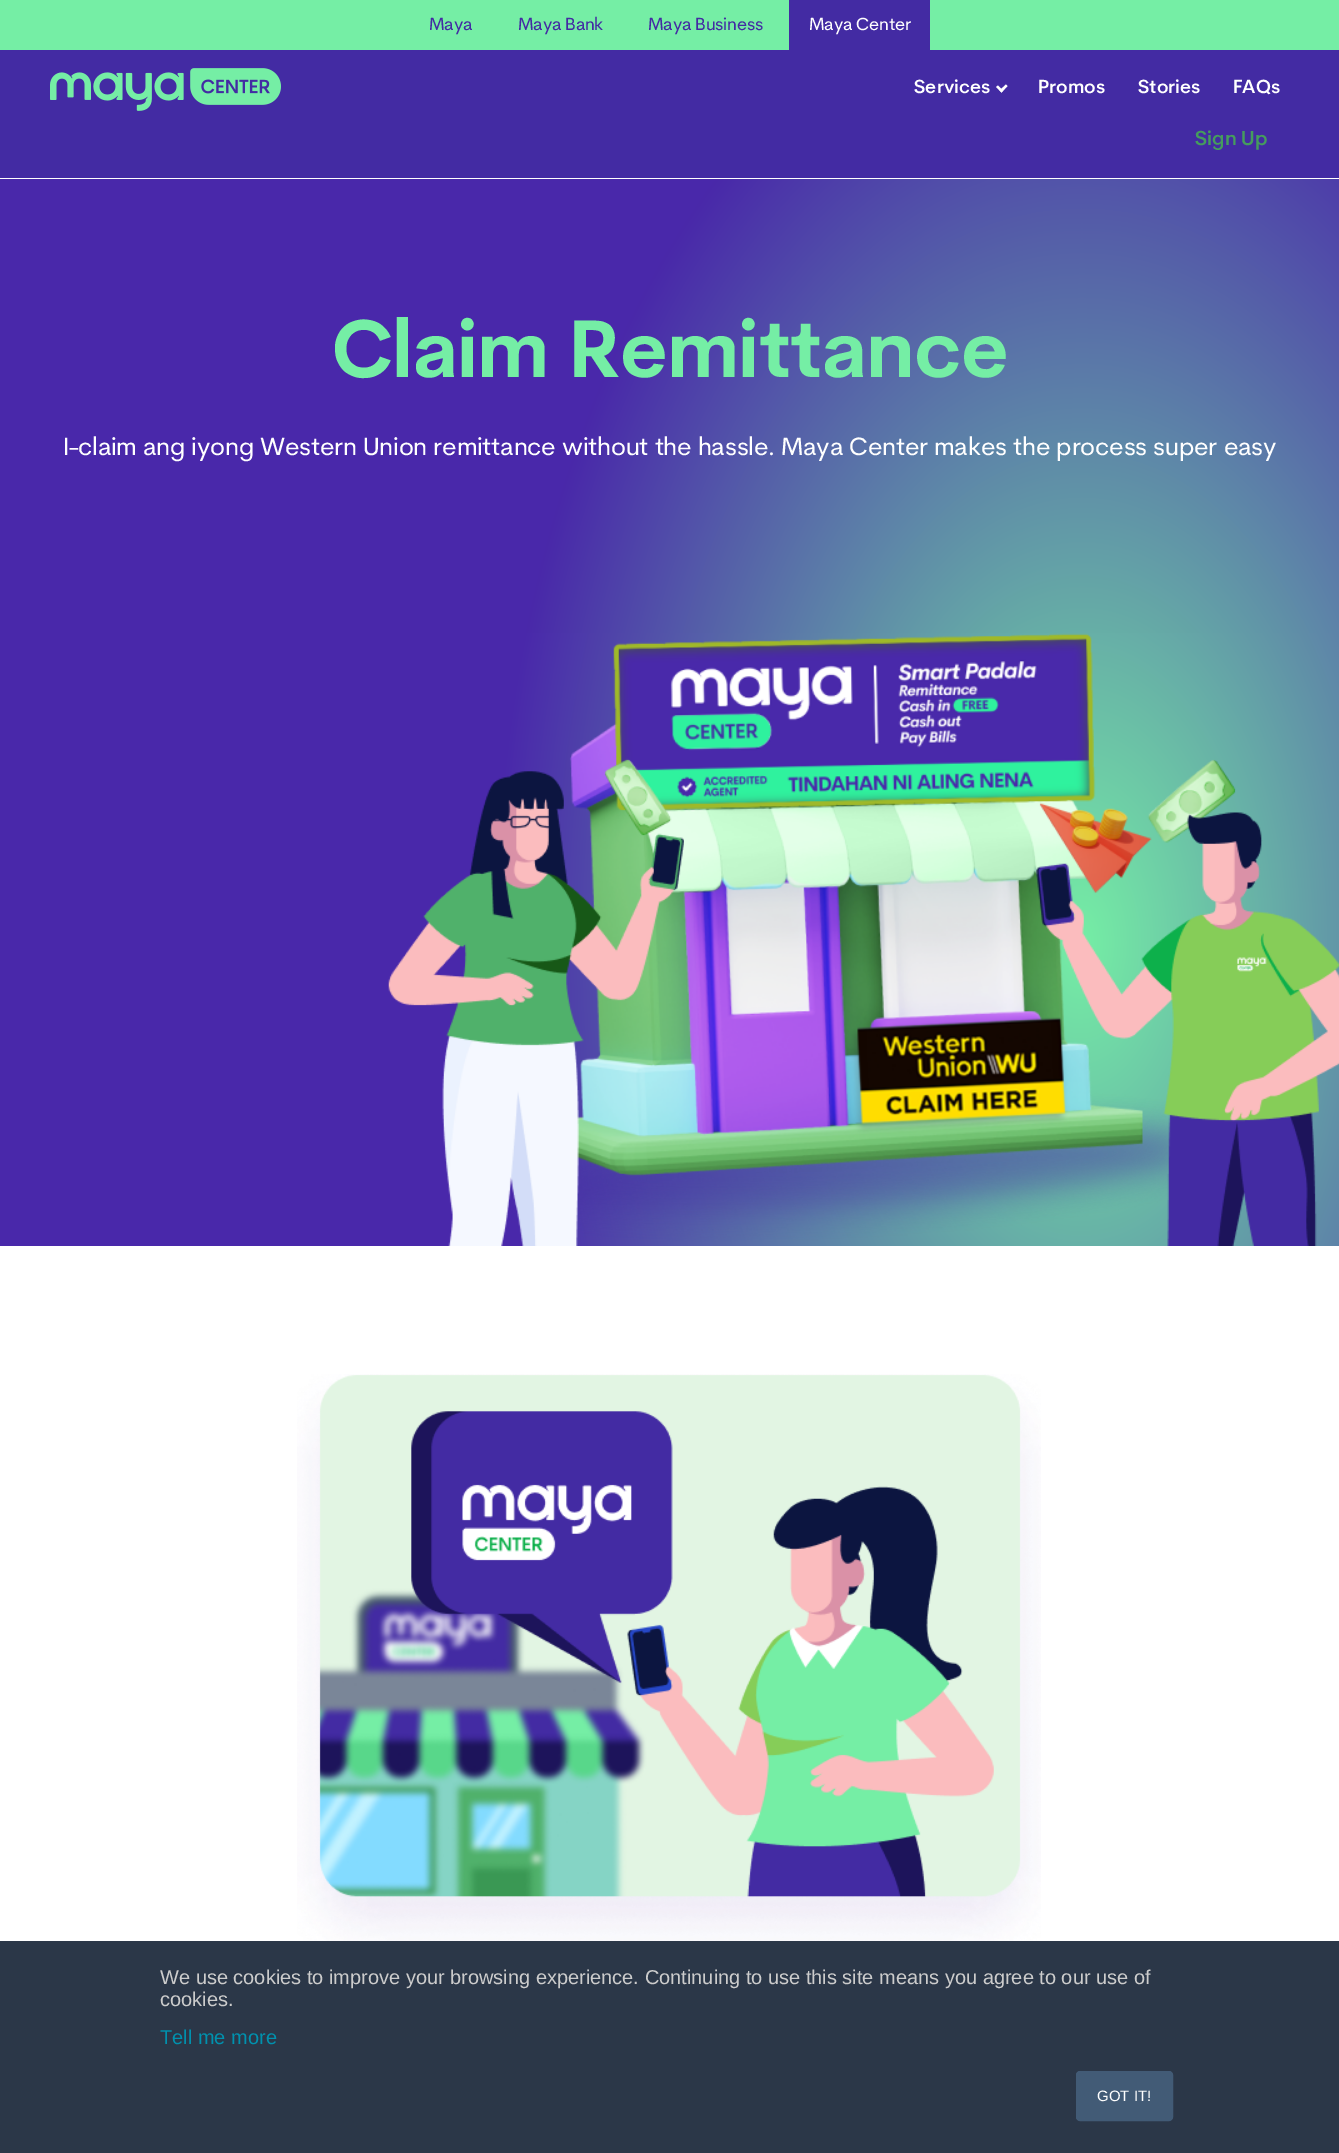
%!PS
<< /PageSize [1339 2153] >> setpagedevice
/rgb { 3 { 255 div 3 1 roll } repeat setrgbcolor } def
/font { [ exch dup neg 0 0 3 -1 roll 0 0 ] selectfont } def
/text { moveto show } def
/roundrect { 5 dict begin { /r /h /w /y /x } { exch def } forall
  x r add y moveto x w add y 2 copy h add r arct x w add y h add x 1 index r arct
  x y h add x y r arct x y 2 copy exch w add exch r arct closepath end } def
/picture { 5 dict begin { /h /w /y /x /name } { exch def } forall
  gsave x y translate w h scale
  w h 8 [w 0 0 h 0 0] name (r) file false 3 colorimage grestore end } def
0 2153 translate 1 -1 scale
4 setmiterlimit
255 255 255 rgb
0 0 1339 2153 rectfill
67 43 163 rgb
0 50 1339 128 rectfill
117 238 165 rgb
0 0 1339 50 rectfill
67 43 163 rgb
789 0 141 50 rectfill
(img_01.rgb) 50 68 231 43 picture
255 255 255 rgb
1006 84.5 moveto 1.5 1.5 rlineto -6 6.5 rlineto -2 -2 rlineto closepath fill
998 85.5 moveto 5 5 rlineto -1.5 2 rlineto -5.5 -5.5 rlineto closepath fill
gsave 0 179 moveto 1339 0 rlineto 0 1067 rlineto -1339 0 rlineto closepath clip newpath 1082 942 translate 587 978 scale
<< /ShadingType 3 /ColorSpace /DeviceRGB /Coords [0 0 0 0 0 1] /Extend [true true] /Function << /FunctionType 2 /Domain [0 1] /C0 [0.459 0.933 0.647] /C1 [0.286 0.157 0.667] /N 1 >> >> shfill grestore
(img_02.rgb) 388 633 951 613 picture
(img_03.rgb) 297 1374 744 567 picture
43 55 72 rgb
0 1941 1339 212 rectfill
66 91 118 rgb
1076.5 2071.5 96 49 3.5 roundrect gsave fill grestore
stroke
/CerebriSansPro-Regular 17.5 font
67 43 163 rgb
429 30 moveto -0.25 0 (Maya) ashow
518 30 moveto -0.25 0 (Maya Bank) ashow
648 30 moveto -0.25 0 (Maya Business) ashow
255 255 255 rgb
809 30 moveto -0.25 0 (Maya Center) ashow
/CerebriSansPro-SemiBold 18.75 font
(Services) 914 93 text
(Promos) 1038 93 text
(Stories) 1138 93 text
(FAQs) 1233 93 text
/CerebriSansPro-SemiBold 20 font
69 156 93 rgb
(Sign Up) 1195 145 text
/CerebriSansPro-Bold 80 font
117 238 165 rgb
332 377 moveto -0.6 0 (Claim Remittance) ashow
/CerebriSansPro-Regular 25 font
255 255 255 rgb
63 455 moveto -0.25 0 (I-claim ang iyong Western Union remittance without the hassle. Maya Center makes the process super easy) ashow
/LiberationSans-Regular 20 font
204 204 204 rgb
(We use cookies to improve your browsing experience. Continuing to use this site means you agree to our use of) 160 1984 text
(cookies.) 160 2006 text
0 145 174 rgb
(Tell me more) 160 2044 text
/LiberationSans-Regular 15 font
255 255 255 rgb
(GOT IT!) 1097 2101 text
showpage
